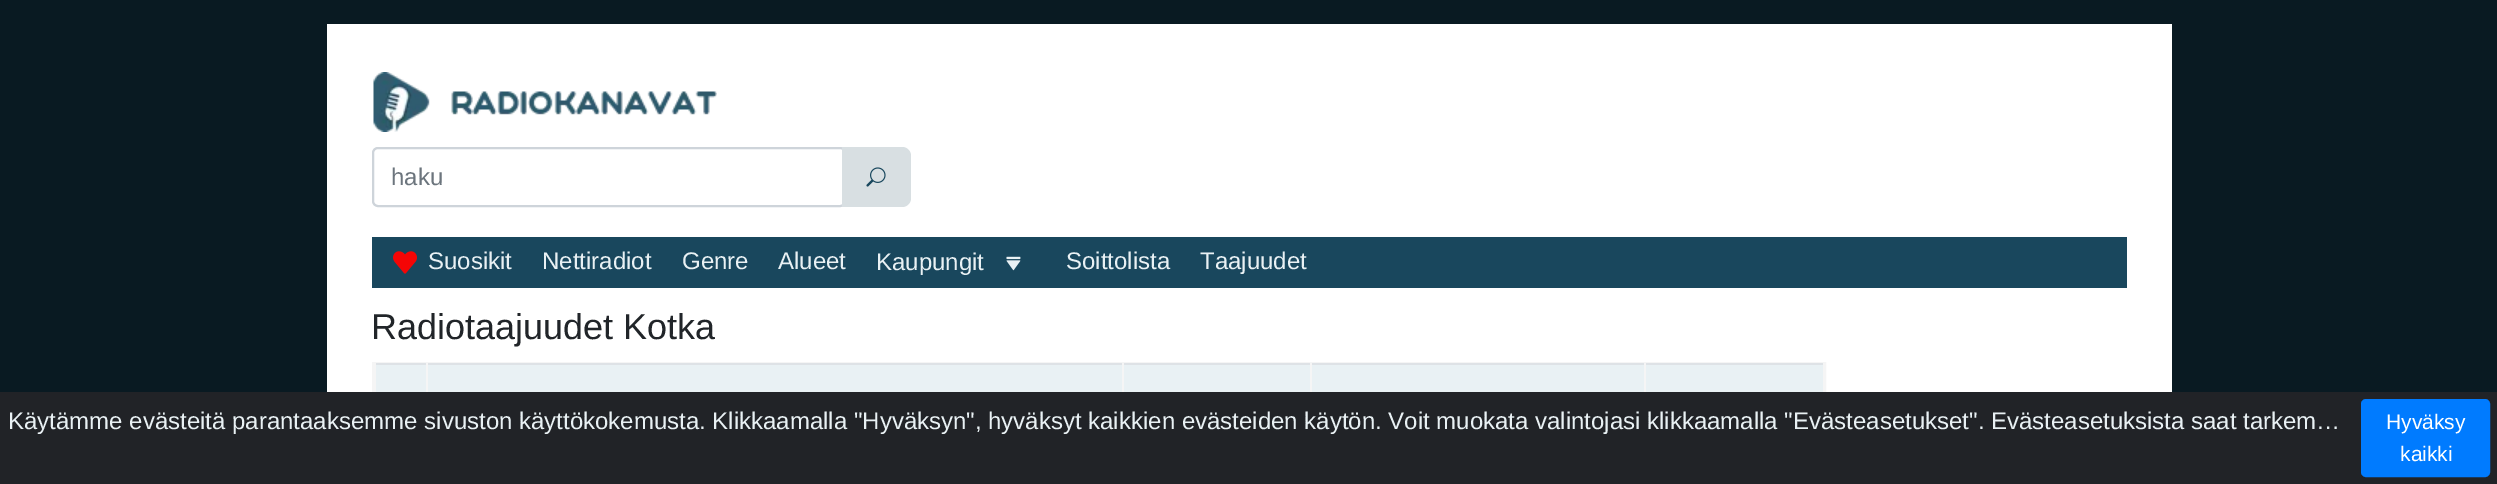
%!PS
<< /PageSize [2497 484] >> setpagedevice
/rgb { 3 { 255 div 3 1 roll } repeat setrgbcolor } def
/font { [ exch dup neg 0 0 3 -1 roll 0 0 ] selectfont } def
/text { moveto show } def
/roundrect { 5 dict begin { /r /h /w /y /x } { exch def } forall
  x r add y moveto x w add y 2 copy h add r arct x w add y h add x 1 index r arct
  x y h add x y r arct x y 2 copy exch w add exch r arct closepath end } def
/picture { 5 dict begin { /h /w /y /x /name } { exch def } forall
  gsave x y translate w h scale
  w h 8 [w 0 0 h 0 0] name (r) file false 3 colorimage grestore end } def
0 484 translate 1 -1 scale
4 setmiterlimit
9 26 34 rgb
0 0 2497 484 rectfill
255 255 255 rgb
327 24 1845 368 rectfill
(img_01.rgb) 373 72 344 60 picture
206 212 218 rgb
2 setlinewidth
373 148 472 58 5 roundrect stroke
216 223 226 rgb
842 147 moveto 60 0 rlineto 5 0 9 4 9 9 rcurveto 0 42 rlineto 0 5 -4 9 -9 9 rcurveto -60 0 rlineto closepath fill
(img_02.rgb) 866 167 20 20 picture
25 71 93 rgb
372 237 1755 51 rectfill
(img_03.rgb) 393 251 24 23 picture
(img_04.rgb) 1006 256 15 15 picture
245 245 245 rgb
373 363 1452 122 rectstroke
233 241 244 rgb
376 365 1447 27 rectfill
222 226 230 rgb
374 363 1450 2 rectfill
245 245 245 rgb
1823 363 1 29 rectfill
426 363 2 29 rectfill
374 363 2 29 rectfill
1122 363 2 29 rectfill
1310 363 2 29 rectfill
1644 363 2 29 rectfill
33 35 39 rgb
0 392 2497 92 rectfill
0 123 255 rgb
2362 400 127 76 4 roundrect gsave fill grestore
stroke
/LiberationSans-Regular 24 font
108 117 125 rgb
(haku) 391 185 text
233 241 244 rgb
(Suosikit) 428 269 text
(Nettiradiot) 542 269 text
(Genre) 682 269 text
(Alueet) 778 269 text
(Kaupungit) 876 270 text
(Soittolista) 1066 269 text
(Taajuudet) 1200 269 text
/LiberationSans-Regular 36 font
33 37 41 rgb
(Radiotaajuudet Kotka) 371 339 text
/LiberationSans-Regular 24 font
233 241 244 rgb
(Käytämme evästeitä parantaaksemme sivuston käyttökokemusta. Klikkaamalla "Hyväksyn", hyväksyt kaikkien evästeiden käytön. Voit muokata valintojasi klikkaamalla "Evästeasetukset". Evästeasetuksista saat tarkem…) 8 429 text
/LiberationSans-Regular 21 font
255 255 255 rgb
(Hyväksy) 2386 429 text
(kaikki) 2400 461 text
showpage
